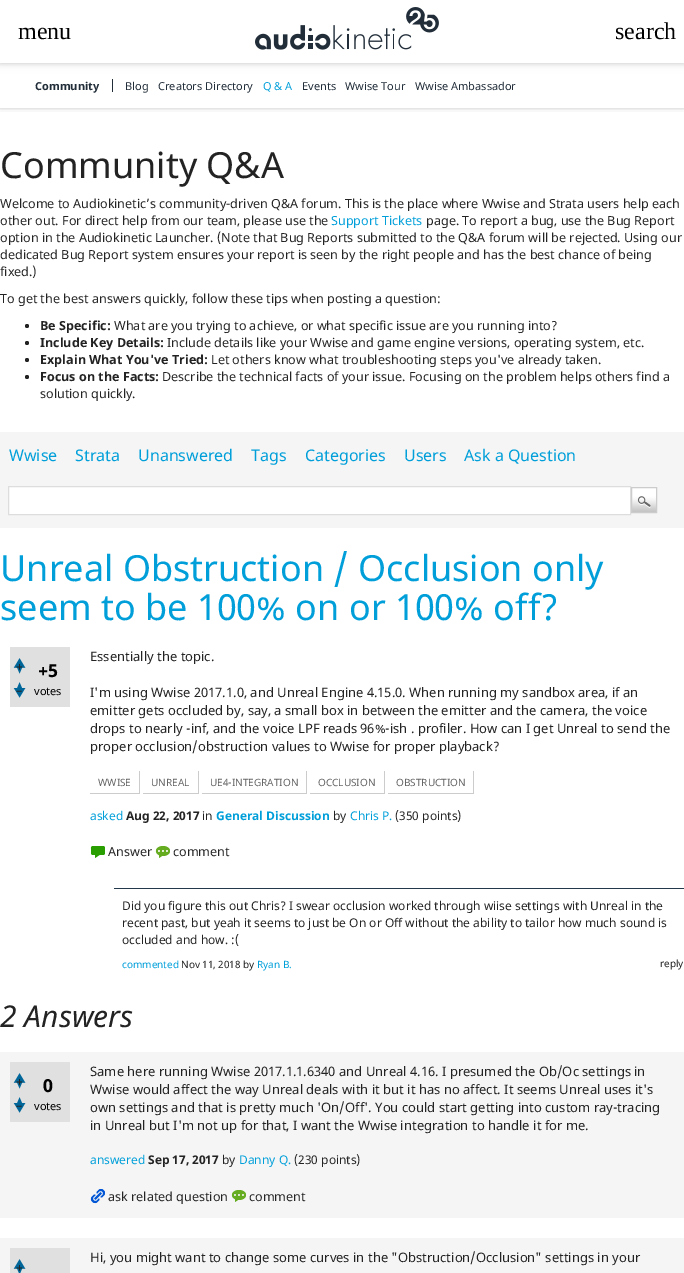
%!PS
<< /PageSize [684 1273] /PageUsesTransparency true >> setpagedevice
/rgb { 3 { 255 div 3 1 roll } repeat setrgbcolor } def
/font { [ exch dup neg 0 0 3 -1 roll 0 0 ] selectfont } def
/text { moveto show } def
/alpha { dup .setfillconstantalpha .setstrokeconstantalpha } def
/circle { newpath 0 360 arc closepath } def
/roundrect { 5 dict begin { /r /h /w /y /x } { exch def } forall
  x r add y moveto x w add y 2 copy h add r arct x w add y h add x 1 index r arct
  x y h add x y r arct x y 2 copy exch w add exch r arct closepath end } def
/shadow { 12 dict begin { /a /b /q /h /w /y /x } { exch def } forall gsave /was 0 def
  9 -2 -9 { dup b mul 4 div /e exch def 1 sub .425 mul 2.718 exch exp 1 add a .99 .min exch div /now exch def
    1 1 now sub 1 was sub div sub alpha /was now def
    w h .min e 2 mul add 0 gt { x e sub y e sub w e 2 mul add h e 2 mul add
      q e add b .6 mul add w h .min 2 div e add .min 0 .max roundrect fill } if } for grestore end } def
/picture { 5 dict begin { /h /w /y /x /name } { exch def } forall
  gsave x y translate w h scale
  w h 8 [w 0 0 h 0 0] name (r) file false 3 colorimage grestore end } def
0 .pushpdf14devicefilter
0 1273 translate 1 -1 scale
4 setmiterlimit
255 255 255 rgb
0 0 684 1273 rectfill
gsave
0 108 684 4 rectclip
0 0 0 rgb
0 64 684 45 0 4 0.08 shadow
grestore
gsave
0 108 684 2 rectclip
0 0 0 rgb
0 64 684 45 0 1 0.08 shadow
grestore
33 45 57 rgb
112 79 1 13 rectfill
0 0 0 rgb
0 2 684 63 0 5 0.06 shadow
0 1 684 63 0 2 0.12 shadow
255 255 255 rgb
0 0 684 63 rectfill
(img_01.rgb) 255 7 184 43 picture
35 35 35 rgb
27 326 2 circle fill
27 343 2 circle fill
27 360 2 circle fill
27 377 2 circle fill
245 245 245 rgb
0 432 684 96 rectfill
255 255 255 rgb
8.5 486.5 moveto 622 0 rlineto 0 28 rlineto -622 0 rlineto closepath gsave fill grestore
221 221 221 rgb
stroke
(img_02.rgb) 632 488 24 24 picture
204 204 204 rgb
631.5 487.5 25 25 rectstroke
224 224 224 rgb
10 647 60 60 rectfill
(img_03.rgb) 13 658 13 16 picture
(img_04.rgb) 13 682 13 16 picture
204 204 204 rgb
139 771 1 23 rectfill
90 793 50 1 rectfill
198 771 1 23 rectfill
143 793 56 1 rectfill
306 771 1 23 rectfill
202 793 105 1 rectfill
384 771 1 23 rectfill
310 793 75 1 rectfill
473 771 1 23 rectfill
388 793 86 1 rectfill
(img_05.rgb) 90 846 15 12 picture
(img_06.rgb) 155 846 15 12 picture
35 56 75 rgb
114 888 570 1 rectfill
245 245 245 rgb
0 1052 684 166 rectfill
224 224 224 rgb
10 1062 60 60 rectfill
(img_03.rgb) 13 1073 13 16 picture
(img_04.rgb) 13 1097 13 16 picture
(img_07.rgb) 90 1189 15 15 picture
(img_08.rgb) 231 1190 15 12 picture
245 245 245 rgb
0 1238 684 35 rectfill
224 224 224 rgb
10 1248 60 25 rectfill
(img_09.rgb) 13 1259 13 14 picture
/LiberationSerif-Regular 24 font
0 0 0 rgb
(menu) 18 39 text
(search) 615 39 text
/NotoSans-Bold 11 font
33 45 57 rgb
(Community) 35 90 text
/NotoSans-Regular 11 font
(Blog) 125 90 text
(Creators Directory) 158 90 text
0 159 218 rgb
(Q & A) 263 90 text
33 45 57 rgb
(Events) 302 90 text
(Wwise Tour) 345 90 text
(Wwise Ambassador) 415 90 text
/NotoSans-Regular 36 font
35 35 35 rgb
(Community Q&A) 0 178 text
/NotoSans-Regular 12.57 font
(Welcome to Audiokinetic’s community-driven Q&A forum. This is the place where Wwise and Strata users help each) 0 208 text
(other out. For direct help from our team, please use the) 0 225 text
0 159 218 rgb
(Support Tickets) 331 225 text
35 35 35 rgb
(page. To report a bug, use the Bug Report) 426 225 text
(option in the Audiokinetic Launcher. \(Note that Bug Reports submitted to the Q&A forum will be rejected. Using our) 0 242 text
(dedicated Bug Report system ensures your report is seen by the right people and has the best chance of being) 0 259 text
(fixed.\)) 0 276 text
(To get the best answers quickly, follow these tips when posting a question:) 0 303 text
/NotoSans-Bold 12.57 font
(Be Specific:) 40 330 text
/NotoSans-Regular 12.57 font
(What are you trying to achieve, or what specific issue are you running into?) 114 330 text
/NotoSans-Bold 12.57 font
(Include Key Details:) 40 347 text
/NotoSans-Regular 12.57 font
(Include details like your Wwise and game engine versions, operating system, etc.) 167 347 text
/NotoSans-Bold 12.57 font
(Explain What You've Tried:) 40 364 text
/NotoSans-Regular 12.57 font
(Let others know what troubleshooting steps you've already taken.) 211 364 text
/NotoSans-Bold 12.57 font
(Focus on the Facts:) 40 381 text
/NotoSans-Regular 12.57 font
(Describe the technical facts of your issue. Focusing on the problem helps others find a) 162 381 text
(solution quickly.) 40 398 text
/NotoSans-Regular 16 font
0 159 218 rgb
(Wwise) 9 461 text
(Strata) 75 461 text
(Unanswered) 138 461 text
(Tags) 251 461 text
(Categories) 305 461 text
(Users) 404 461 text
(Ask a Question) 464 461 text
/NotoSans-Regular 36 font
(Unreal Obstruction / Occlusion only) 0 581 text
(seem to be 100% on or 100% off?) 0 620 text
/NotoSans-Regular 12.57 font
35 35 35 rgb
(+) 16 671 text
(–) 16 695 text
/NotoSans-Bold 18 font
0 0 0 rgb
(+5) 38 677 text
/NotoSans-Regular 11 font
(votes) 34 695 text
/NotoSans-Regular 13 font
35 35 35 rgb
(Essentially the topic.) 90 661 text
(I'm using Wwise 2017.1.0, and Unreal Engine 4.15.0. When running my sandbox area, if an) 90 697 text
(emitter gets occluded by, say, a small box in between the emitter and the camera, the voice) 90 715 text
(drops to nearly -inf, and the voice LPF reads 96%-ish . profiler. How can I get Unreal to send the) 90 733 text
(proper occlusion/obstruction values to Wwise for proper playback?) 90 751 text
/NotoSans-Regular 10 font
102 102 102 rgb
(WWISE) 98 786 text
(UNREAL) 151 786 text
(UE4-INTEGRATION) 210 786 text
(OCCLUSION) 318 786 text
(OBSTRUCTION) 396 786 text
/NotoSans-Regular 12 font
0 159 218 rgb
(asked) 90 820 text
/NotoSans-Bold 12 font
35 35 35 rgb
(Aug 22, 2017) 126 820 text
/NotoSans-Regular 12 font
(in) 202 820 text
/NotoSans-Bold 12 font
0 159 218 rgb
(General Discussion) 216 820 text
/NotoSans-Regular 12 font
35 35 35 rgb
(by) 333 820 text
0 159 218 rgb
(Chris P.) 350 820 text
35 35 35 rgb
(\(350 points\)) 395 820 text
/NotoSans-Regular 12.57 font
(Answer) 108 856 text
(comment) 173 856 text
/NotoSans-Regular 12 font
(Did you figure this out Chris? I swear occlusion worked through wiise settings with Unreal in the) 122 910 text
(recent past, but yeah it seems to just be On or Off without the ability to tailor how much sound is) 122 927 text
(occluded and how. :\() 122 944 text
/NotoSans-Regular 10 font
0 159 218 rgb
(commented) 122 968 text
35 35 35 rgb
(Nov 11, 2018 by) 181 968 text
0 159 218 rgb
(Ryan B.) 257 968 text
35 35 35 rgb
(reply) 660 967 text
/NotoSans-Italic 30 font
(2 Answers) 0 1027 text
/NotoSans-Regular 12.57 font
(+) 16 1086 text
(–) 16 1110 text
/NotoSans-Bold 18 font
0 0 0 rgb
(0) 43 1092 text
/NotoSans-Regular 11 font
(votes) 34 1110 text
/NotoSans-Regular 13 font
35 35 35 rgb
(Same here running Wwise 2017.1.1.6340 and Unreal 4.16. I presumed the Ob/Oc settings in) 90 1076 text
(Wwise would affect the way Unreal deals with it but it has no affect. It seems Unreal uses it's) 90 1094 text
(own settings and that is pretty much 'On/Off'. You could start getting into custom ray-tracing) 90 1112 text
(in Unreal but I'm not up for that, I want the Wwise integration to handle it for me.) 90 1130 text
/NotoSans-Regular 12 font
0 159 218 rgb
(answered) 90 1164 text
/NotoSans-Bold 12 font
35 35 35 rgb
(Sep 17, 2017) 148 1164 text
/NotoSans-Regular 12 font
(by) 222 1164 text
0 159 218 rgb
(Danny Q.) 239 1164 text
35 35 35 rgb
(\(230 points\)) 294 1164 text
/NotoSans-Regular 12.57 font
(ask related question) 108 1201 text
(comment) 249 1201 text
/NotoSans-Regular 13 font
(Hi, you might want to change some curves in the "Obstruction/Occlusion" settings in your) 90 1262 text
/NotoSans-Regular 12.57 font
(+) 16 1272 text
.poppdf14devicefilter showpage
